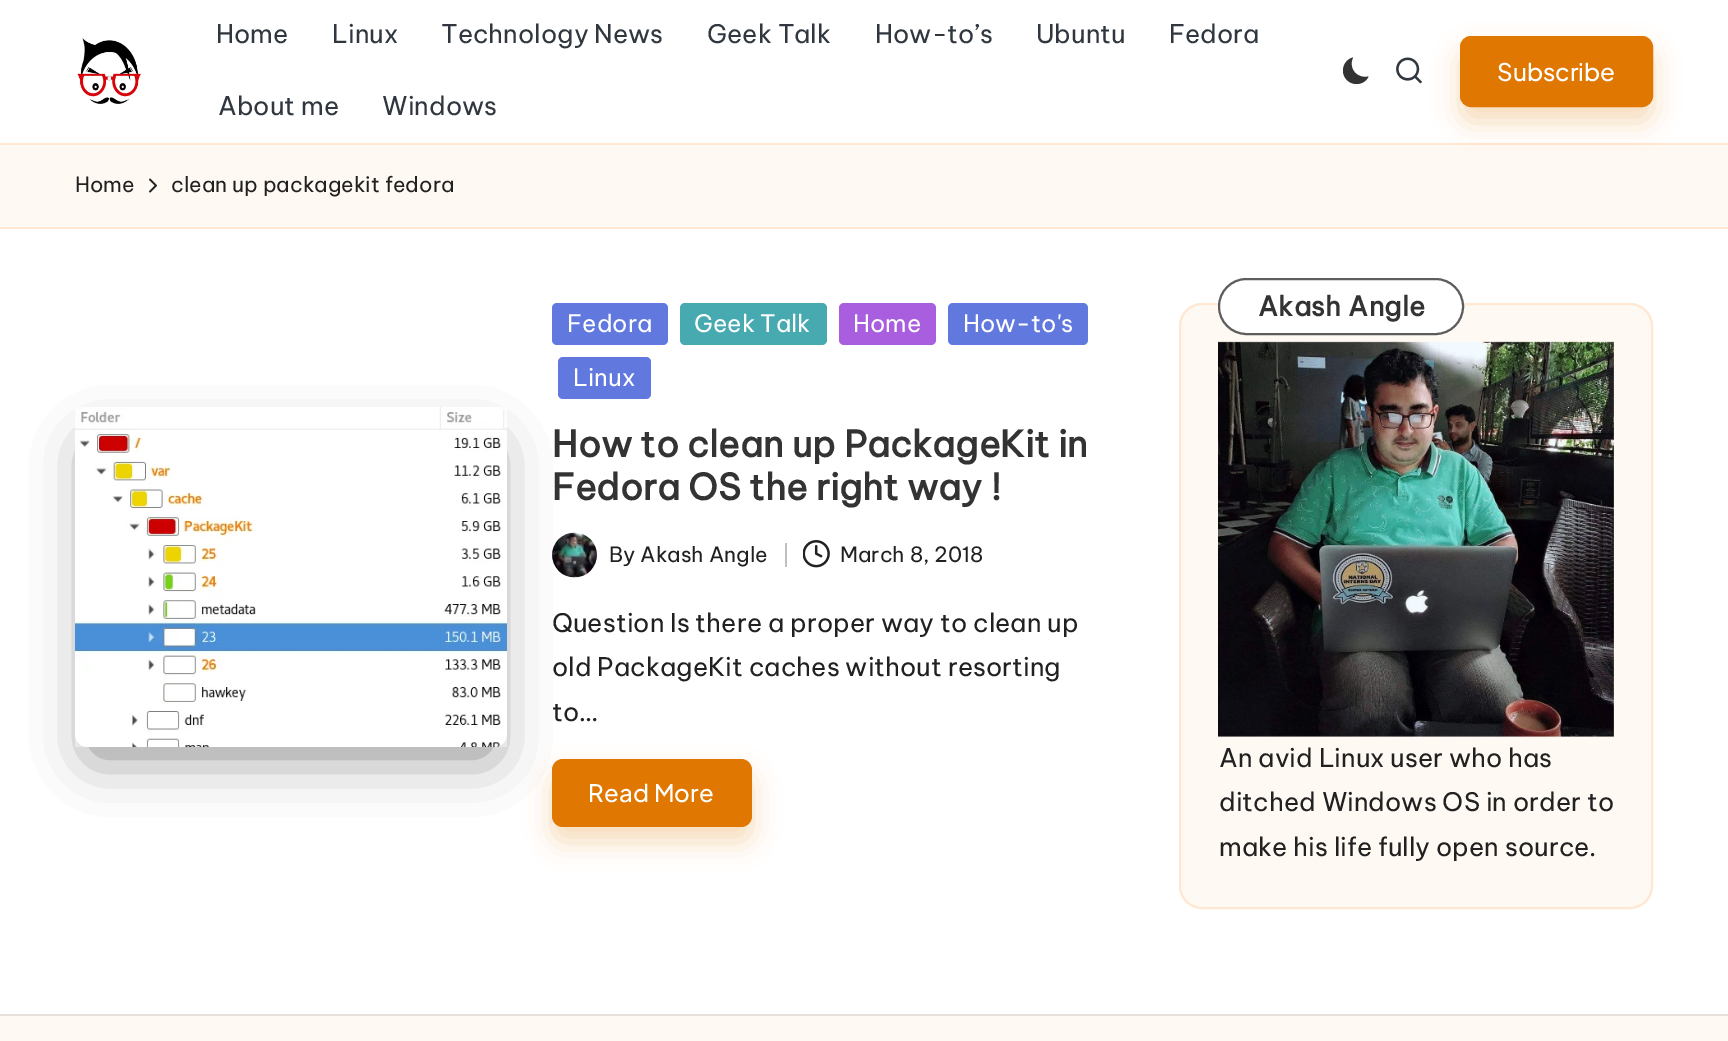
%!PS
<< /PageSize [1728 1041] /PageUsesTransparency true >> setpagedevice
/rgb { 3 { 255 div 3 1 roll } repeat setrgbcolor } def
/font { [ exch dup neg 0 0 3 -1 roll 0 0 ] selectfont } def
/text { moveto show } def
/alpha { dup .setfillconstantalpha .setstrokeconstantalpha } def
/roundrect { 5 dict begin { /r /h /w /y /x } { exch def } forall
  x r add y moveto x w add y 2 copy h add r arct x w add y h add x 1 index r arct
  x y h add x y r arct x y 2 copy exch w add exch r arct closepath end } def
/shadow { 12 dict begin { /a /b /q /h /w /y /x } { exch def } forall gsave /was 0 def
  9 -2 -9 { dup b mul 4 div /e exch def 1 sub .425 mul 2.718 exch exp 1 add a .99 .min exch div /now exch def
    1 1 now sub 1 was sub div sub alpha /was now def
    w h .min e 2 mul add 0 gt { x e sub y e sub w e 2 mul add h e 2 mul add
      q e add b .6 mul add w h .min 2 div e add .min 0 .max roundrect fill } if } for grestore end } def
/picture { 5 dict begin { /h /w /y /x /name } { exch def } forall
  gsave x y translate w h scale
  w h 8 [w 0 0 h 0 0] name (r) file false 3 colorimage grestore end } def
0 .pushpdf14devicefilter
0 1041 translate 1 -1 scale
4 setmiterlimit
255 255 255 rgb
0 0 1728 1041 rectfill
(img_01.rgb) 77 37 65 67 picture
51 51 51 rgb
1368.5 76.5 moveto -11.5 2.5 -20.5 -8 -15.5 -19 rcurveto -6 1.5 -10 7 -10 13 rcurveto 0 7.5 6 13.5 13.5 13.5 rcurveto 5.5 0 10 -3 12 -7.5 rcurveto closepath fill
(img_02.rgb) 1396 57 26 27 picture
255 249 243 rgb
0 145 1728 82 rectfill
255 231 210 rgb
0 143 1728 2 rectfill
224 119 0 rgb
1460 51 193 71 11 13.5 0.27 shadow
1461 37 191 69 10 roundrect gsave fill grestore
2 setlinewidth
stroke
255 231 210 rgb
0 227 1728 2 rectfill
(img_03.rgb) 149 178 8 15 picture
97 120 223 rgb
558 357 93 42 5 roundrect fill
(img_05.rgb) 552 532 45 46 picture
0 0 0 rgb
93 449 396 304 0 28.5 0.5 shadow
(img_04.rgb) 75 407 432 340 picture
97 120 223 rgb
552 303 116 42 5 roundrect fill
72 170 177 rgb
680 303 147 42 5 roundrect fill
169 94 223 rgb
839 303 97 42 5 roundrect fill
97 120 223 rgb
948 303 140 42 5 roundrect fill
191 191 191 rgb
785 543 2 24 rectfill
(img_06.rgb) 803 540 27 28 picture
224 119 0 rgb
552 774 200 68 11 13.5 0.27 shadow
552 759 200 68 11 roundrect fill
255 249 243 rgb
1180 304 472 604 22 roundrect gsave fill grestore
255 231 210 rgb
stroke
255 255 255 rgb
1218 278 246 57 28.5 roundrect fill
0.75 alpha
39 39 39 rgb
1219 279 244 55 27.5 roundrect stroke
1 alpha
(img_07.rgb) 1218 341 396 396 picture
255 249 243 rgb
0 1016 1728 25 rectfill
230 224 219 rgb
0 1014 1728 2 rectfill
/BeVietnamPro-Regular 25.5 font
48 55 62 rgb
(Home) 216 43 text
(Linux) 332 43 text
(Technology News) 441 43 text
(Geek Talk) 707 43 text
(How-to’s) 875 43 text
(Ubuntu) 1036 43 text
(Fedora) 1169 43 text
(About me) 218 115 text
(Windows) 382 115 text
/PlusJakartaSans-Medium 24.25 font
255 255 255 rgb
(Subscribe) 1497 81 text
/BeVietnamPro-Regular 21 font
33 33 33 rgb
(Home) 75 192 text
(clean up packagekit fedora) 171 192 text
/BeVietnamPro-Regular 24 font
255 255 255 rgb
(Fedora) 567 332 text
(Geek Talk) 694 332 text
(Home) 853 332 text
(How-to's) 963 332 text
(Linux) 573 386 text
/BeVietnamPro-Bold 36 font
51 51 51 rgb
(How to clean up PackageKit in) 552 457 text
(Fedora OS the right way !) 552 500 text
/BeVietnamPro-Regular 21 font
33 33 33 rgb
(By Akash Angle) 609 562 text
(March 8, 2018) 840 562 text
/BeVietnamPro-Regular 25.5 font
(Question Is there a proper way to clean up) 552 632 text
(old PackageKit caches without resorting) 552 676 text
(to…) 552 721 text
/PlusJakartaSans-Medium 24 font
255 255 255 rgb
588 802 moveto 0.25 0 (Read More) ashow
/BeVietnamPro-Bold 27 font
51 51 51 rgb
1258 316 moveto 0.4 0 (Akash Angle) ashow
/BeVietnamPro-Regular 25.5 font
33 33 33 rgb
(An avid Linux user who has) 1219 767 text
(ditched Windows OS in order to) 1219 811 text
(make his life fully open source.) 1219 856 text
.poppdf14devicefilter showpage
